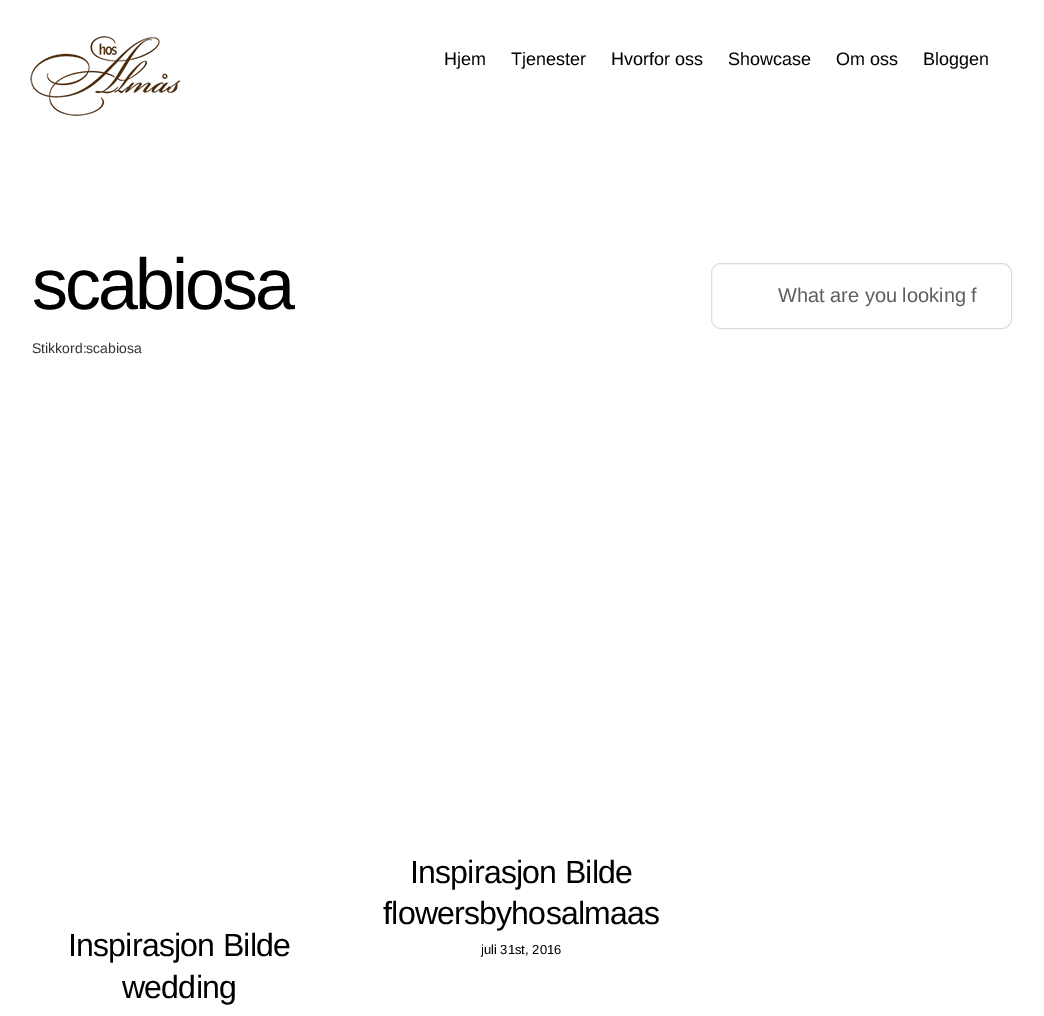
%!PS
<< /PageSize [1044 1016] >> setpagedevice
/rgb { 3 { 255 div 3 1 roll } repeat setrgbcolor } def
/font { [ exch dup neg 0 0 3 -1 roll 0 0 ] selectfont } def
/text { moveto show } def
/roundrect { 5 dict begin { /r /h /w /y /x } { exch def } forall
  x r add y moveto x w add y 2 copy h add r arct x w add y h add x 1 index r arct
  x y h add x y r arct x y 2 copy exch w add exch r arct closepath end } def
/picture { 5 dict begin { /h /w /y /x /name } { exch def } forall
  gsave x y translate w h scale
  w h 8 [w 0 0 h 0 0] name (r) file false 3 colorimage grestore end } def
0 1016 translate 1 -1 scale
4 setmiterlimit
255 255 255 rgb
0 0 1044 1016 rectfill
(img_01.rgb) 30 36 151 80 picture
220 220 220 rgb
711.5 263.5 300 65 9.5 roundrect stroke
/LiberationSans-Regular 18 font
0 0 0 rgb
(Hjem) 444 65 text
(Tjenester) 511 65 text
(Hvorfor oss) 611 65 text
(Showcase) 728 65 text
(Om oss) 836 65 text
(Bloggen) 923 65 text
/LiberationSans-Regular 72 font
32 309 moveto -3 0 (scabiosa) ashow
/LiberationSans-Regular 14 font
51 51 51 rgb
(Stikkord:scabiosa) 32 353 text
/LiberationSans-Regular 20 font
94 94 94 rgb
(What are you looking f) 778 302 text
/LiberationSans-Regular 32 font
0 0 0 rgb
410 883 moveto -0.75 0 (Inspirasjon Bilde) ashow
383 924 moveto -0.75 0 (flowersbyhosalmaas) ashow
/LiberationSans-Regular 13 font
(juli 31st, 2016) 481 954 text
/LiberationSans-Regular 32 font
68 956 moveto -0.75 0 (Inspirasjon Bilde) ashow
122 998 moveto -0.75 0 (wedding) ashow
showpage
